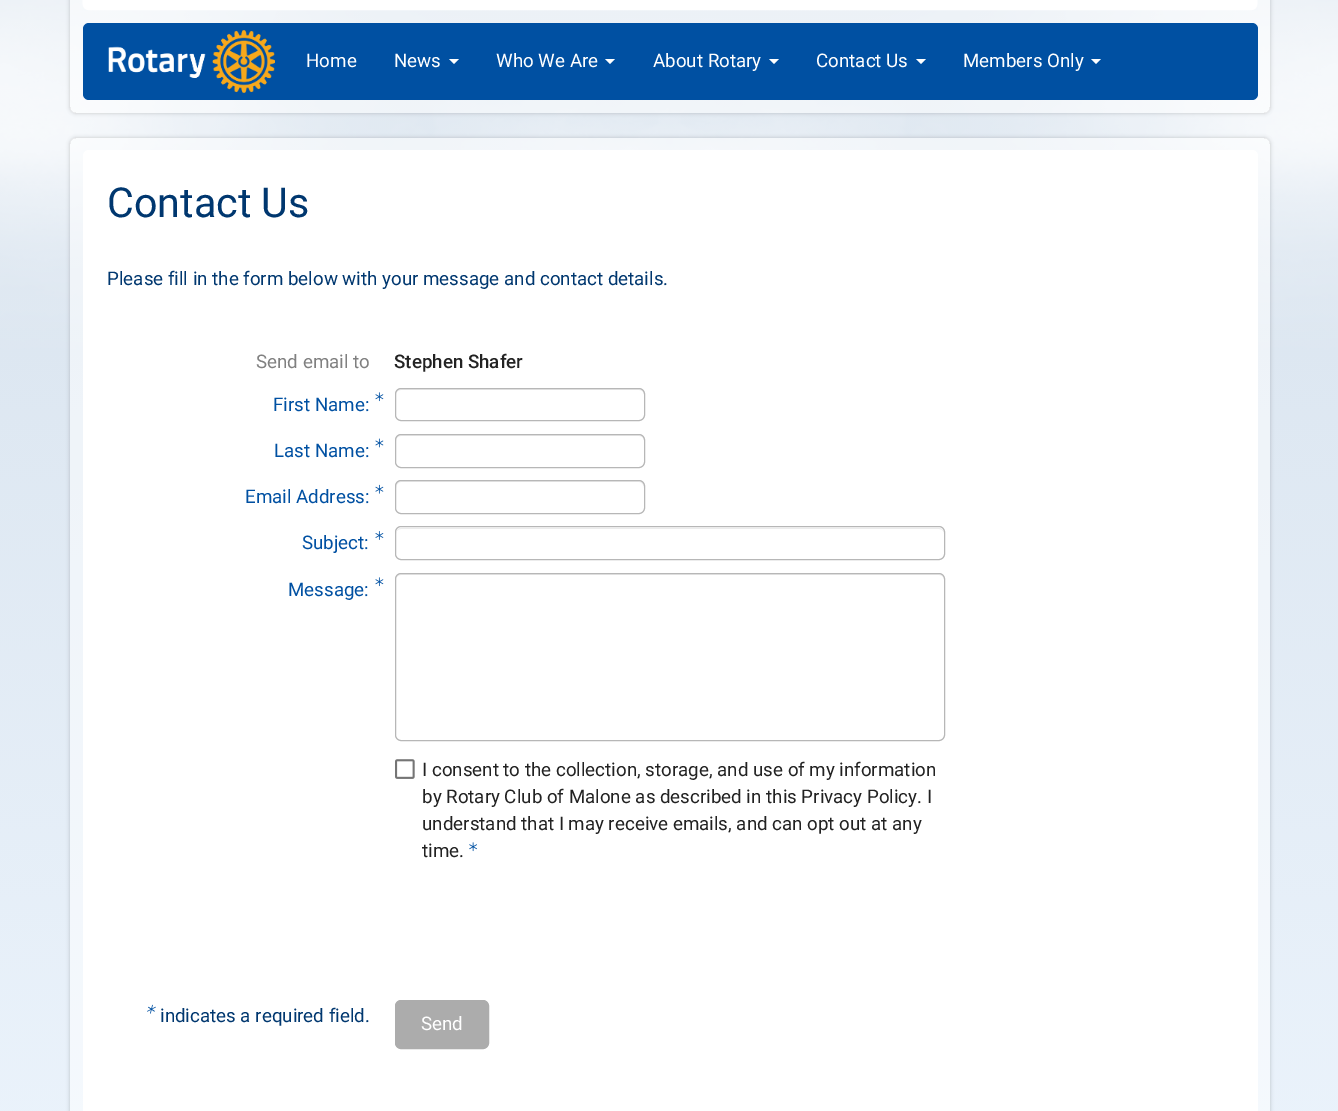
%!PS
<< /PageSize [1338 1111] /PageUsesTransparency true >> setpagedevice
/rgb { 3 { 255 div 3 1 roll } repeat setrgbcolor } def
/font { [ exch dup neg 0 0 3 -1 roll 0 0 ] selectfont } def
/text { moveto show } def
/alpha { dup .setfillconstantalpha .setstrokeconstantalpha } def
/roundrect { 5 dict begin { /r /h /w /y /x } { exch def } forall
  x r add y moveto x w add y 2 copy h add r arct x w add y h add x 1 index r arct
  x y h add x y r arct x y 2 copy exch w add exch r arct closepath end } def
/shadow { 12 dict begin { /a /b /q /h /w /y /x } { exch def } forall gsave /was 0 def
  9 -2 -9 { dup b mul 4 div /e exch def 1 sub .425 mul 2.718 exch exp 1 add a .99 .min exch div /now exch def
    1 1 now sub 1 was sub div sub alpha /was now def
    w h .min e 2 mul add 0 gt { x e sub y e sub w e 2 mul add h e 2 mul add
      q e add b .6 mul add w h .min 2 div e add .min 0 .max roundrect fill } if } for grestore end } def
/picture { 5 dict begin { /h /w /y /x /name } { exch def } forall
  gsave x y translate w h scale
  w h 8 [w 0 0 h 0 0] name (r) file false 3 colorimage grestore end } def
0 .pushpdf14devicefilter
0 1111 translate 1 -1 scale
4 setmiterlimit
255 255 255 rgb
0 0 1338 1111 rectfill
(img_01.rgb) 0 0 1338 1111 picture
gsave
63 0 moveto 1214 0 rlineto 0 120 rlineto -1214 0 rlineto closepath 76 -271 moveto 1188 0 rlineto 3.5 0 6 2.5 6 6 rcurveto 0 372 rlineto 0 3.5 -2.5 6 -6 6 rcurveto -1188 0 rlineto -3.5 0 -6 -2.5 -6 -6 rcurveto 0 -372 rlineto 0 -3.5 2.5 -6 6 -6 rcurveto closepath eoclip newpath
0 0 0 rgb
70 -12 1200 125 6 2 0.2 shadow
grestore
0.5 alpha
70 -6 1200 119 6 roundrect fill
1 alpha
(img_02.rgb) 82 0 1176 11 picture
0 80 162 rgb
83 23 1175 77 6 roundrect fill
(img_03.rgb) 108 30 167 63 picture
255 255 255 rgb
449 59 moveto 10 0 rlineto -5 5 rlineto closepath fill
605 59 moveto 10 0 rlineto -5 5 rlineto closepath fill
769 59 moveto 10 0 rlineto -5 5 rlineto closepath fill
916 59 moveto 10 0 rlineto -5 5 rlineto closepath fill
1091 59 moveto 10 0 rlineto -5 5 rlineto closepath fill
gsave
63 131 moveto 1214 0 rlineto 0 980 rlineto -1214 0 rlineto closepath 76 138 moveto 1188 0 rlineto 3.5 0 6 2.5 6 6 rcurveto 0 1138 rlineto 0 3.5 -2.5 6 -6 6 rcurveto -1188 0 rlineto -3.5 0 -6 -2.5 -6 -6 rcurveto 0 -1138 rlineto 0 -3.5 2.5 -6 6 -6 rcurveto closepath eoclip newpath
0 0 0 rgb
70 138 1200 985 6 2 0.2 shadow
grestore
0.5 alpha
70 138 1200 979 6 roundrect fill
1 alpha
83 150 1175 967 6 roundrect fill
(img_04.rgb) 375 392 9 10 picture
236 236 236 rgb
401 390 moveto 238 0 rlineto 3 0 5 2 5 5 rcurveto 0 -1 rlineto 0 -3 -2 -5 -5 -5 rcurveto -238 0 rlineto -3 0 -5 2 -5 5 rcurveto 0 1 rlineto 0 -3 2 -5 5 -5 rcurveto closepath fill
183 183 183 rgb
395.5 388.5 249 32 5.5 roundrect stroke
(img_05.rgb) 375 438 9 10 picture
236 236 236 rgb
401 436 moveto 238 0 rlineto 3 0 5 2 5 5 rcurveto 0 -1 rlineto 0 -3 -2 -5 -5 -5 rcurveto -238 0 rlineto -3 0 -5 2 -5 5 rcurveto 0 1 rlineto 0 -3 2 -5 5 -5 rcurveto closepath fill
183 183 183 rgb
395.5 434.5 249 33 5.5 roundrect stroke
(img_06.rgb) 375 484 9 10 picture
236 236 236 rgb
401 482 moveto 238 0 rlineto 3 0 5 3 5 6 rcurveto 0 -3 0 -6 -4 -7 rcurveto -240 0 rlineto -4 1 -4 4 -4 7 rcurveto 0 -3 2 -6 5 -6 rcurveto closepath fill
183 183 183 rgb
395.5 480.5 249 33 5.5 roundrect stroke
(img_07.rgb) 375 531 9 9 picture
236 236 236 rgb
401 529 moveto 538 0 rlineto 3 0 5 2 5 5 rcurveto 0 -3 -2 -6 -5 -6 rcurveto -538 0 rlineto -3 0 -5 3 -5 6 rcurveto 0 -3 2 -5 5 -5 rcurveto closepath fill
183 183 183 rgb
395.5 526.5 549 33 5.5 roundrect stroke
(img_04.rgb) 375 577 9 10 picture
236 236 236 rgb
401 575 moveto 538 0 rlineto 3 0 5 2 5 5 rcurveto 0 -3 -2 -6 -5 -6 rcurveto -538 0 rlineto -3 0 -5 3 -5 6 rcurveto 0 -3 2 -5 5 -5 rcurveto closepath fill
183 183 183 rgb
395.5 573.5 549 167 5.5 roundrect stroke
(img_08.rgb) 395 759 20 20 picture
(img_09.rgb) 469 842 8 10 picture
(img_10.rgb) 147 1004 9 10 picture
172 172 172 rgb
395.5 1000.5 93 48 5.5 roundrect gsave fill grestore
stroke
/Roboto-Regular 18.75 font
255 255 255 rgb
(Home) 306 67 text
(News) 394 67 text
(Who We Are) 496 67 text
(About Rotary) 653 67 text
(Contact Us) 816 67 text
(Members Only) 963 67 text
/Roboto-Regular 41.25 font
0 55 111 rgb
(Contact Us) 107 217 text
/Roboto-Regular 18.75 font
(Please fill in the form below with your message and contact details.) 107 285 text
128 128 128 rgb
(Send email to) 256 368 text
/Roboto-Medium 18.75 font
34 34 34 rgb
(Stephen Shafer) 394 368 text
/Roboto-Regular 18.75 font
0 80 162 rgb
(First Name:) 273 411 text
(Last Name:) 274 457 text
(Email Address:) 245 503 text
(Subject:) 302 549 text
(Message:) 288 596 text
34 34 34 rgb
(I consent to the collection, storage, and use of my information) 422 776 text
(by Rotary Club of Malone as described in this Privacy Policy) 422 803 text
(. I) 917 803 text
(understand that I may receive emails, and can opt out at any) 422 830 text
(time.) 422 857 text
0 55 111 rgb
(indicates a required field.) 160 1022 text
255 255 255 rgb
(Send) 421 1030 text
.poppdf14devicefilter showpage
